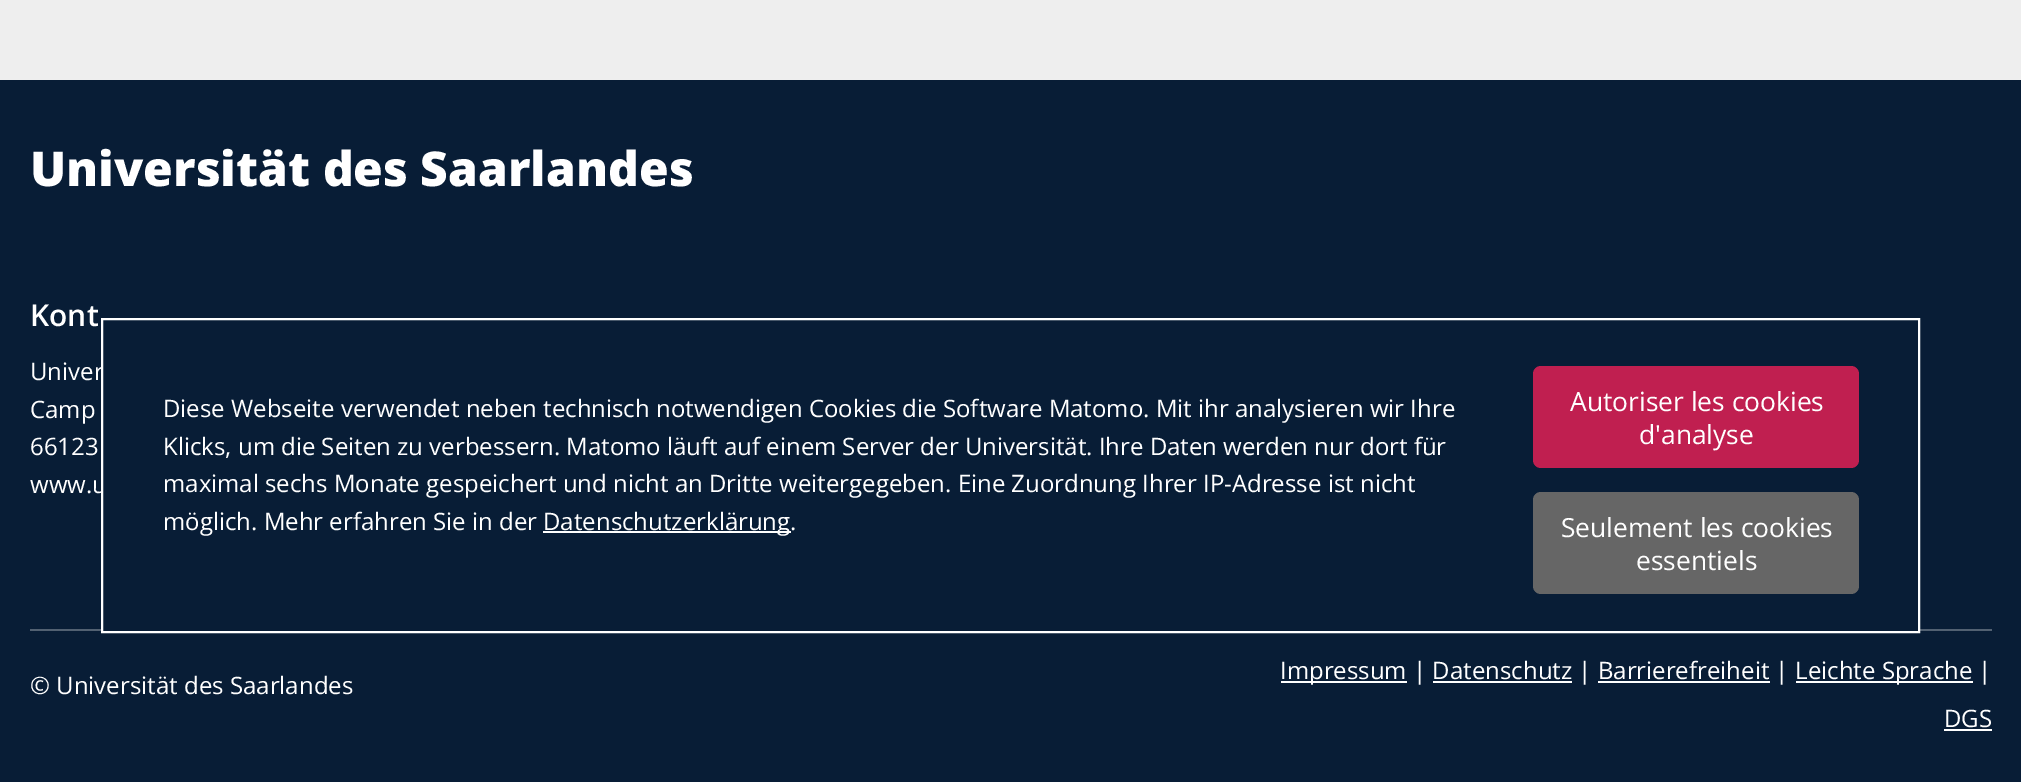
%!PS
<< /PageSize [2021 782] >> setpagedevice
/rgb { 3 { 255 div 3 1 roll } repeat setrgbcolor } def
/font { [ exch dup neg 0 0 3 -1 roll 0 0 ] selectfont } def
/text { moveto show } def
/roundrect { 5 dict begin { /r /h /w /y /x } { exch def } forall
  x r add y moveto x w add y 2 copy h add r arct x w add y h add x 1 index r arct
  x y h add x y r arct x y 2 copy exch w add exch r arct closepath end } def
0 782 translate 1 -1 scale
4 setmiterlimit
238 238 238 rgb
0 0 2021 782 rectfill
8 29 54 rgb
0 80 2021 702 rectfill
82 97 114 rgb
30 629 1962 2 rectfill
255 255 255 rgb
1281 681 126 2 rectfill
1796 681 177 2 rectfill
1433 681 139 2 rectfill
1598 681 172 2 rectfill
1944 729 48 2 rectfill
/OpenSans-ExtraBold 48 font
(Universität des Saarlandes) 30 186 text
/OpenSans-SemiBold 30 font
(Kont) 30 326 text
/OpenSans-Regular 24 font
(Univer) 30 380 text
(Camp) 30 418 text
(66123) 30 455 text
(www.u) 30 493 text
(© Universität des Saarlandes) 30 694 text
(Impressum | Datenschutz | Barrierefreiheit |) 1280 679 text
(Leichte Sprache |) 1795 679 text
(DGS) 1944 727 text
8 29 54 rgb
103 367 1815 264 rectfill
255 255 255 rgb
2 setlinewidth
102 319 1817 313 rectstroke
(Diese Webseite verwendet neben technisch notwendigen Cookies die Software Matomo. Mit ihr analysieren wir Ihre) 163 417 text
(Klicks, um die Seiten zu verbessern. Matomo läuft auf einem Server der Universität. Ihre Daten werden nur dort für) 163 455 text
(maximal sechs Monate gespeichert und nicht an Dritte weitergegeben. Eine Zuordnung Ihrer IP-Adresse ist nicht) 163 492 text
(möglich. Mehr erfahren Sie in der) 163 530 text
543 531 248 2 rectfill
(Datenschutzerklärung.) 543 530 text
192 31 80 rgb
1533 366 326 102 8 roundrect fill
/OpenSans-Regular 26.4 font
255 255 255 rgb
(Autoriser les cookies) 1570 411 text
(d'analyse) 1639 444 text
102 102 102 rgb
1533 492 326 102 8 roundrect fill
255 255 255 rgb
(Seulement les cookies) 1561 537 text
(essentiels) 1636 570 text
showpage
